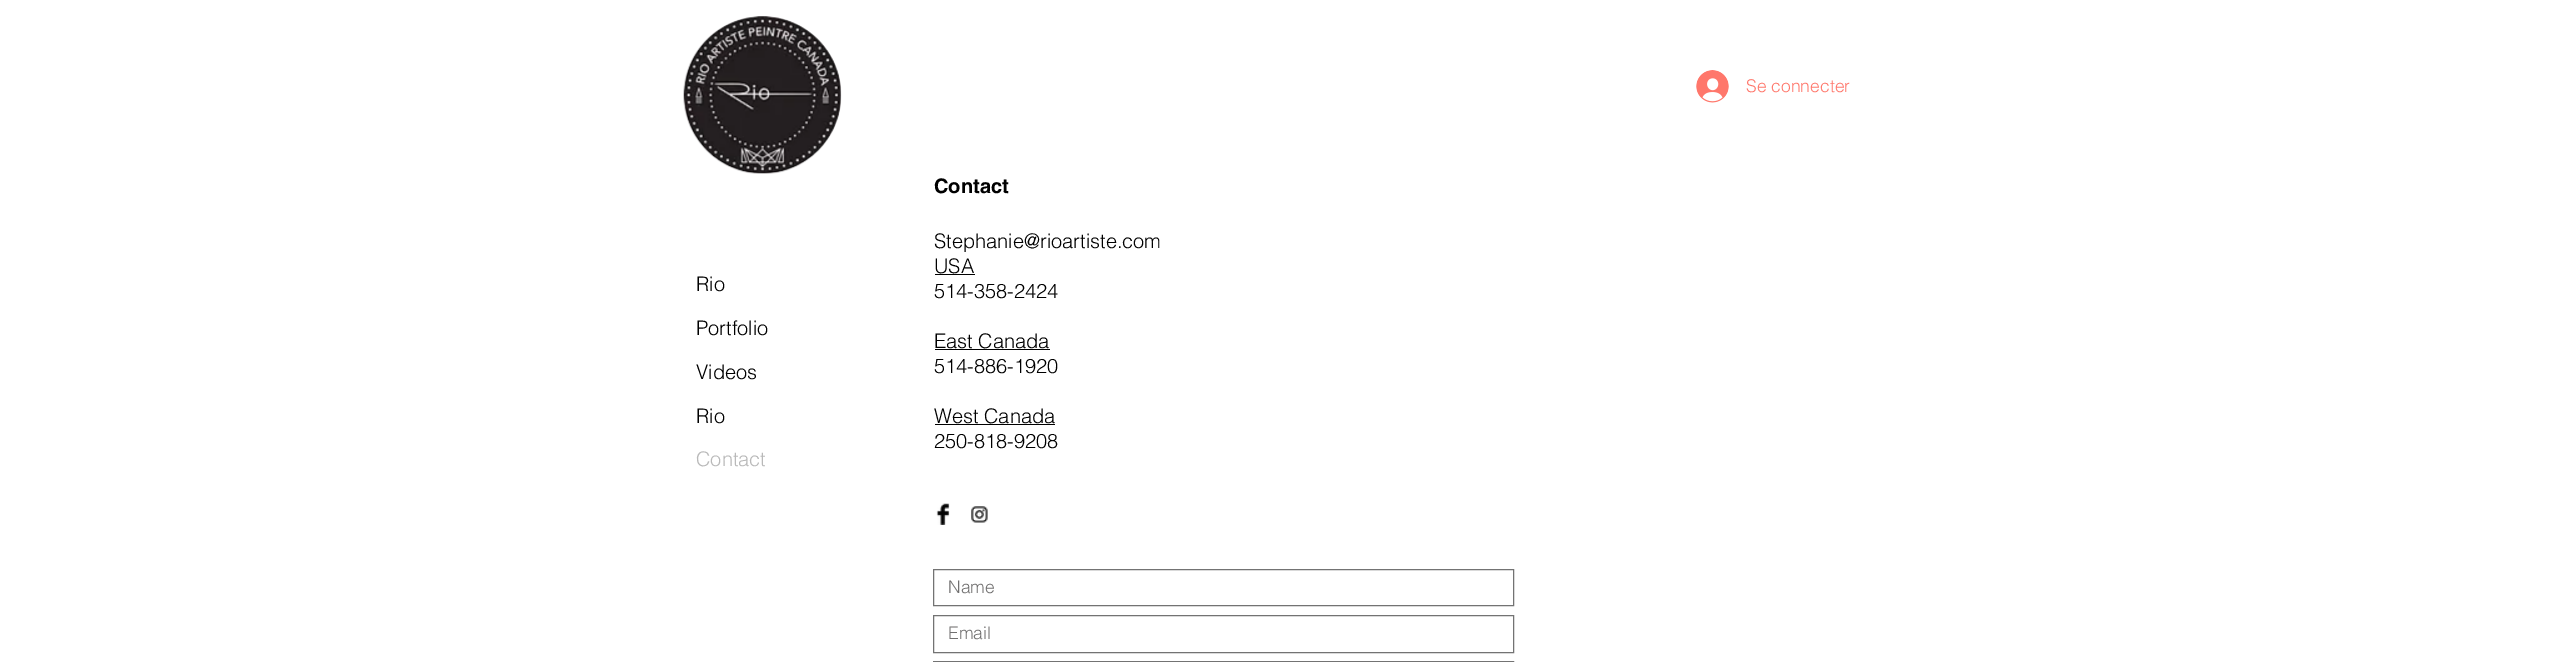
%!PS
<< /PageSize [2556 662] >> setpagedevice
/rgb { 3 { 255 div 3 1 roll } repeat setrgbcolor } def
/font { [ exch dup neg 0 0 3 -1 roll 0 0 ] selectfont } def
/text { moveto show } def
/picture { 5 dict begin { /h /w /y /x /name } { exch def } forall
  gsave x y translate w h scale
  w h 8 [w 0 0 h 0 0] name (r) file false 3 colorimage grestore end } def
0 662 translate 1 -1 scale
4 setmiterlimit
255 255 255 rgb
0 0 2556 662 rectfill
(img_01.rgb) 683 16 159 158 picture
(img_02.rgb) 1696 70 33 33 picture
0 0 0 rgb
935 274 40 1 rectfill
935 349 115 1 rectfill
935 424 120 1 rectfill
(img_03.rgb) 936 503 14 22 picture
(img_04.rgb) 971 506 17 17 picture
115 115 115 rgb
933.5 569.5 580 36 rectstroke
933.5 615.5 580 37 rectstroke
933.5 661.5 580 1 rectstroke
/helvetica-Light 17.5 font
255 119 107 rgb
(Se connecter) 1746 92 text
/helvetica-Light 20 font
0 0 0 rgb
(Rio) 696 291 text
(Portfolio) 696 335 text
(Videos) 696 379 text
(Rio) 696 423 text
185 185 185 rgb
(Contact) 696 466 text
/helvetica-Bold 20 font
0 0 0 rgb
(Contact) 934 193 text
/helvetica-Light 20 font
(Stephanie@rioartiste.com) 934 248 text
(USA) 934 273 text
(514-358-2424) 934 298 text
(East Canada) 934 348 text
(514-886-1920) 934 373 text
(West Canada) 934 423 text
(250-818-9208) 934 448 text
/helvetica-Light 17.5 font
113 112 112 rgb
(Name) 948 593 text
(Email) 948 639 text
showpage
